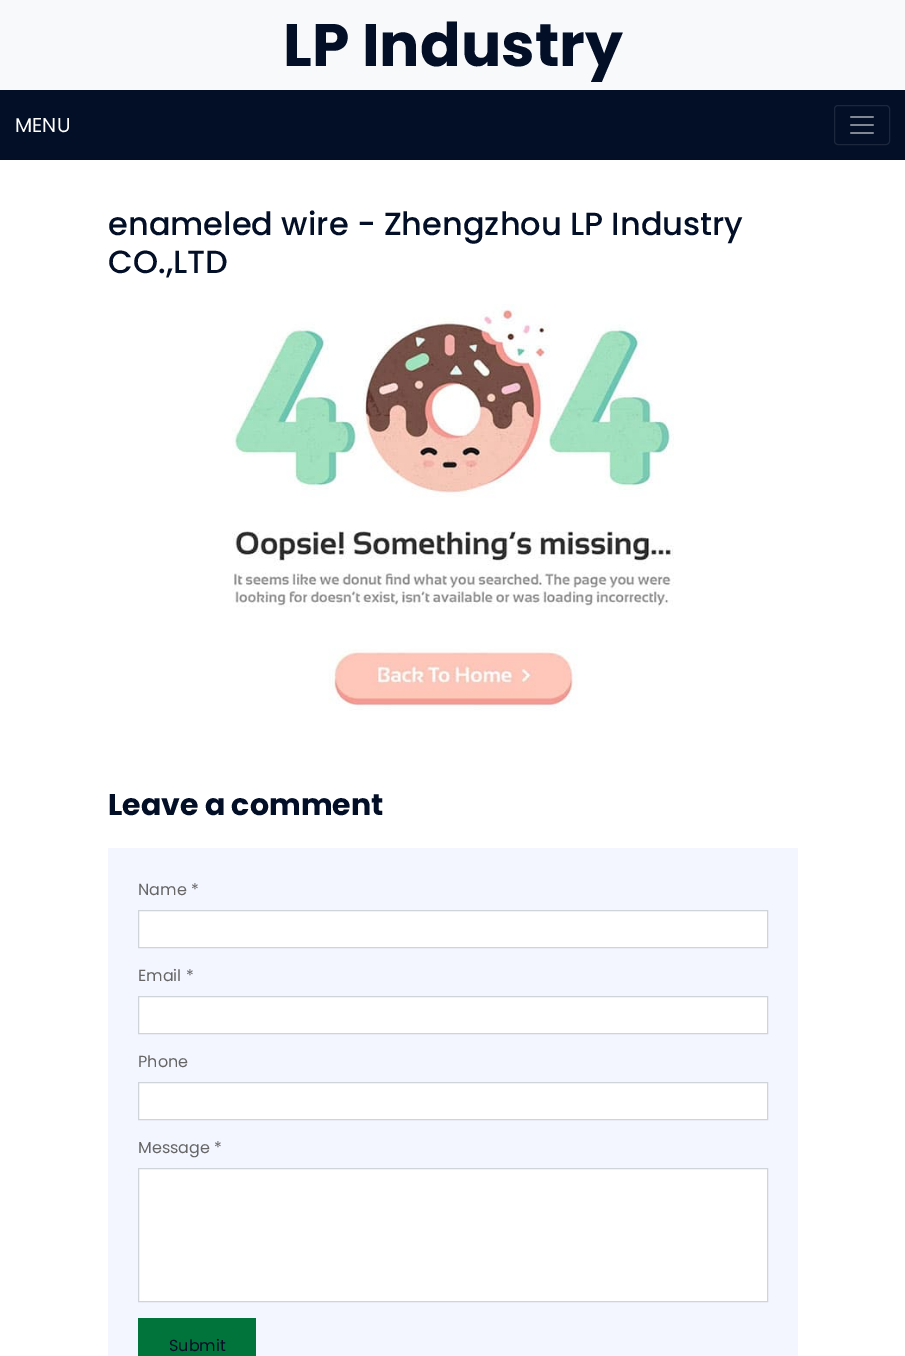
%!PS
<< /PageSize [905 1356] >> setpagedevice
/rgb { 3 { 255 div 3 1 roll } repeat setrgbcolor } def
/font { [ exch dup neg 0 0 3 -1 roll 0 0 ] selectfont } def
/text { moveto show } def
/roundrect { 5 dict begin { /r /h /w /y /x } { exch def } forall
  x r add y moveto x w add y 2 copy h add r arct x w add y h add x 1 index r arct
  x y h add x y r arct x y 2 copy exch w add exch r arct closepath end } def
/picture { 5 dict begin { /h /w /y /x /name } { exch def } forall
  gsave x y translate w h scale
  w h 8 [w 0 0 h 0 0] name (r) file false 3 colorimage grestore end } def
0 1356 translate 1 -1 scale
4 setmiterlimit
255 255 255 rgb
0 0 905 1356 rectfill
248 249 250 rgb
0 0 905 90 rectfill
3 15 39 rgb
0 90 905 70 rectfill
28 39 61 rgb
834.5 105.5 55 39 3.5 roundrect stroke
(img_01.rgb) 850 116 24 18 picture
(img_02.rgb) 232 304 442 407 picture
243 246 255 rgb
108 848 690 508 rectfill
255 255 255 rgb
138.5 910.5 moveto 629 0 rlineto 0 37 rlineto -629 0 rlineto closepath gsave fill grestore
206 212 218 rgb
stroke
255 255 255 rgb
138.5 996.5 moveto 629 0 rlineto 0 37 rlineto -629 0 rlineto closepath gsave fill grestore
206 212 218 rgb
stroke
255 255 255 rgb
138.5 1082.5 moveto 629 0 rlineto 0 37 rlineto -629 0 rlineto closepath gsave fill grestore
206 212 218 rgb
stroke
255 255 255 rgb
138.5 1168.5 moveto 629 0 rlineto 0 133 rlineto -629 0 rlineto closepath gsave fill grestore
206 212 218 rgb
stroke
0 116 59 rgb
138 1318 118 38 rectfill
/Poppins-Bold 60 font
3 15 39 rgb
(LP Industry) 283 66 text
/Poppins-Regular 20 font
255 255 255 rgb
(MENU) 15 132 text
/Poppins-Medium 32 font
3 15 39 rgb
(enameled wire - Zhengzhou LP Industry) 108 235 text
(CO.,LTD) 108 273 text
/Poppins-Bold 30 font
(Leave a comment) 108 815 text
/Poppins-Regular 16 font
102 102 102 rgb
(Name *) 138 895 text
(Email *) 138 981 text
(Phone) 138 1067 text
(Message *) 138 1153 text
3 15 39 rgb
(Submit) 169 1351 text
showpage
